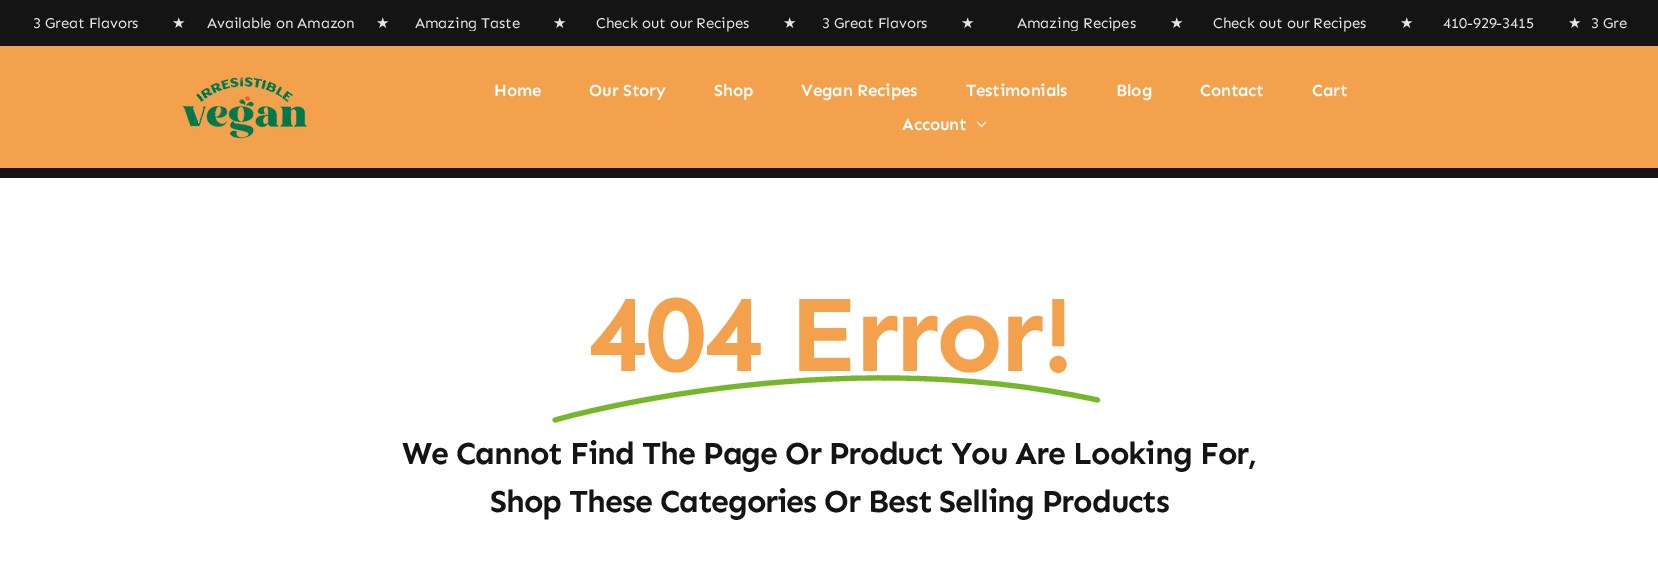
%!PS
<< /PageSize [1658 567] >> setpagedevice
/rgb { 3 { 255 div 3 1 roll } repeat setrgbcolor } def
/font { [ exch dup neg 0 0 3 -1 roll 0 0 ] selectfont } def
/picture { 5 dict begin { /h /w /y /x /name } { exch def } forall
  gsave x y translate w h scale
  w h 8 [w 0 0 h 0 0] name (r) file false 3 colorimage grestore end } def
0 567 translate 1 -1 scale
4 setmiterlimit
255 255 255 rgb
0 0 1658 567 rectfill
20 20 20 rgb
0 0 1658 46 rectfill
243 161 77 rgb
0 46 1658 122 rectfill
(img_01.rgb) 182 77 125 62 picture
(img_02.rgb) 976 121 11 7 picture
20 20 20 rgb
0 168 1658 10 rectfill
118 182 43 rgb
5.1 setlinewidth
1 setlinecap
1 setlinejoin
555 420 moveto 0 0 272.5 -79.5 542.5 -20 rcurveto stroke
/Sen-Regular 15 font
229 229 229 rgb
33 28 moveto -0.15 0 (3 Great Flavors) ashow
/DejaVuSans-Regular 15 font
172 28 moveto -0.15 0 (★) ashow
/Sen-Regular 15 font
207 28 moveto -0.15 0 (Available on Amazon) ashow
/DejaVuSans-Regular 15 font
376 28 moveto -0.15 0 (★) ashow
gsave
30 16 1598 15 rectclip
/Sen-Regular 15 font
415 28 moveto -0.15 0 (Amazing Taste) ashow
grestore
553 28 moveto -0.15 0 (★) ashow
/Sen-Regular 15 font
596 28 moveto -0.15 0 (Check out our Recipes) ashow
/DejaVuSans-Regular 15 font
783 28 moveto -0.15 0 (★) ashow
/Sen-Regular 15 font
822 28 moveto -0.15 0 (3 Great Flavors) ashow
/DejaVuSans-Regular 15 font
961 28 moveto -0.15 0 (★) ashow
gsave
30 16 1598 15 rectclip
/Sen-Regular 15 font
1017 28 moveto -0.15 0 (Amazing Recipes) ashow
grestore
1170 28 moveto -0.15 0 (★) ashow
/Sen-Regular 15 font
1213 28 moveto -0.15 0 (Check out our Recipes) ashow
/DejaVuSans-Regular 15 font
1400 28 moveto -0.15 0 (★) ashow
/Sen-Regular 15 font
1443 28 moveto -0.15 0 (410-929-3415) ashow
/DejaVuSans-Regular 15 font
1568 28 moveto -0.15 0 (★) ashow
/Sen-Regular 15 font
1591 28 moveto -0.15 0 (3 Gre) ashow
/Sen-SemiBold 17 font
255 255 255 rgb
494 96 moveto -0.2 0 (Home) ashow
589 96 moveto -0.2 0 (Our Story) ashow
714 96 moveto -0.2 0 (Shop) ashow
801 96 moveto -0.2 0 (Vegan Recipes) ashow
966 96 moveto -0.2 0 (Testimonials) ashow
1116 96 moveto -0.2 0 (Blog) ashow
1200 96 moveto -0.2 0 (Contact) ashow
1312 96 moveto -0.2 0 (Cart) ashow
902 130 moveto -0.2 0 (Account) ashow
/Sen-Bold 110 font
243 161 77 rgb
587 371 moveto -3.8 0 (404 Error!) ashow
/Sen-Bold 32 font
20 20 20 rgb
402 464 moveto -1.12 0 (We Cannot Find The Page Or Product You Are Looking For,) ashow
490 512 moveto -1.12 0 (Shop These Categories Or Best Selling Products) ashow
showpage
